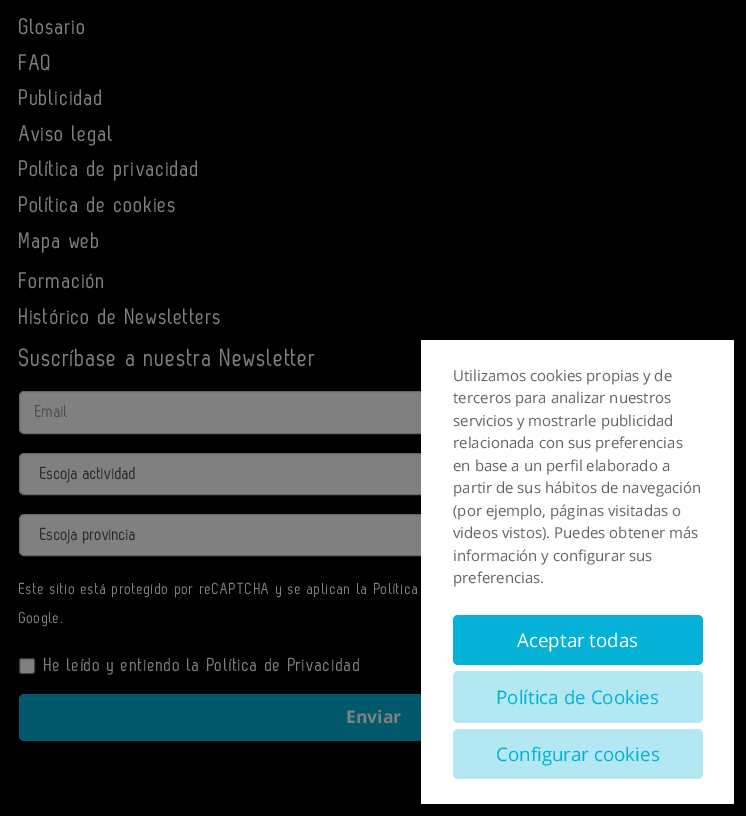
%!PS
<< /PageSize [746 816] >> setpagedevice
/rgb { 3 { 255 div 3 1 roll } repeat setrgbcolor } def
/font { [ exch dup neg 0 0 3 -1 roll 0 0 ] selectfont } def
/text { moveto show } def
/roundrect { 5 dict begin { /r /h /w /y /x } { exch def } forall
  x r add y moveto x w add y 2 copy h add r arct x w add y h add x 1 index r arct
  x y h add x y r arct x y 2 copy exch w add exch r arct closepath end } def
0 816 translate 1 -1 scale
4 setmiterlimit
0 0 0 rgb
0 0 746 816 rectfill
128 128 128 rgb
19.5 391.5 708 42 4.5 roundrect gsave fill grestore
102 102 102 rgb
stroke
128 128 128 rgb
19.5 453.5 708 41 4.5 roundrect gsave fill grestore
102 102 102 rgb
stroke
128 128 128 rgb
19.5 514.5 708 41 4.5 roundrect gsave fill grestore
102 102 102 rgb
stroke
128 128 128 rgb
19.5 658.5 15 15 2 roundrect gsave fill grestore
59 59 59 rgb
stroke
2 89 107 rgb
19 694 709 47 5 roundrect fill
255 255 255 rgb
421 340 313 464 rectfill
3 178 214 rgb
453 615 250 50 5 roundrect fill
179 232 243 rgb
453 671 250 52 5 roundrect fill
453 729 250 50 5 roundrect fill
/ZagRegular-Regular 22.5 font
128 128 128 rgb
19 34 moveto 0.83 0 (Glosario) ashow
19 70 moveto 0.83 0 (FAQ) ashow
19 105 moveto 0.83 0 (Publicidad) ashow
19 141 moveto 0.83 0 (Aviso legal) ashow
19 176 moveto 0.83 0 (Política de privacidad) ashow
19 212 moveto 0.83 0 (Política de cookies) ashow
19 248 moveto 0.83 0 (Mapa web) ashow
19 288 moveto 0.83 0 (Formación) ashow
19 324 moveto 0.83 0 (Histórico de Newsletters) ashow
/ZagRegular-Regular 25 font
19 366 moveto 0.83 0 (Suscríbase a nuestra Newsletter) ashow
gsave
35 405 676 16 rectclip
/ZagRegular-Regular 17.5 font
77 77 77 rgb
(Email) 35 417 text
grestore
/ZagRegular-Regular 17.5 font
43 43 43 rgb
(Escoja actividad) 40 479 text
(Escoja provincia) 40 540 text
/ZagRegular-Regular 15.95 font
128 128 128 rgb
19 594 moveto 0.83 0 (Este sitio está protegido por reCAPTCHA y se aplican la Política) ashow
19 623 moveto 0.83 0 (Google.) ashow
/ZagRegular-Regular 18.75 font
44 671 moveto 0.83 0 (He leído y entiendo la Política de Privacidad) ashow
/OpenSans-Bold 17.5 font
(Enviar) 346 723 text
/OpenSans-Regular 15 font
100 100 100 rgb
(Utilizamos cookies propias y de) 453 381 text
(terceros para analizar nuestros) 453 403 text
(servicios y mostrarle publicidad) 453 426 text
(relacionada con sus preferencias) 453 448 text
(en base a un perfil elaborado a) 453 471 text
(partir de sus hábitos de navegación) 453 493 text
(\(por ejemplo, páginas visitadas o) 453 516 text
(videos vistos\). Puedes obtener más) 453 538 text
(información y configurar sus) 453 561 text
(preferencias.) 453 583 text
/OpenSans-Regular 18.75 font
255 255 255 rgb
(Aceptar todas) 517 647 text
3 178 214 rgb
(Política de Cookies) 496 704 text
(Configurar cookies) 496 761 text
showpage
